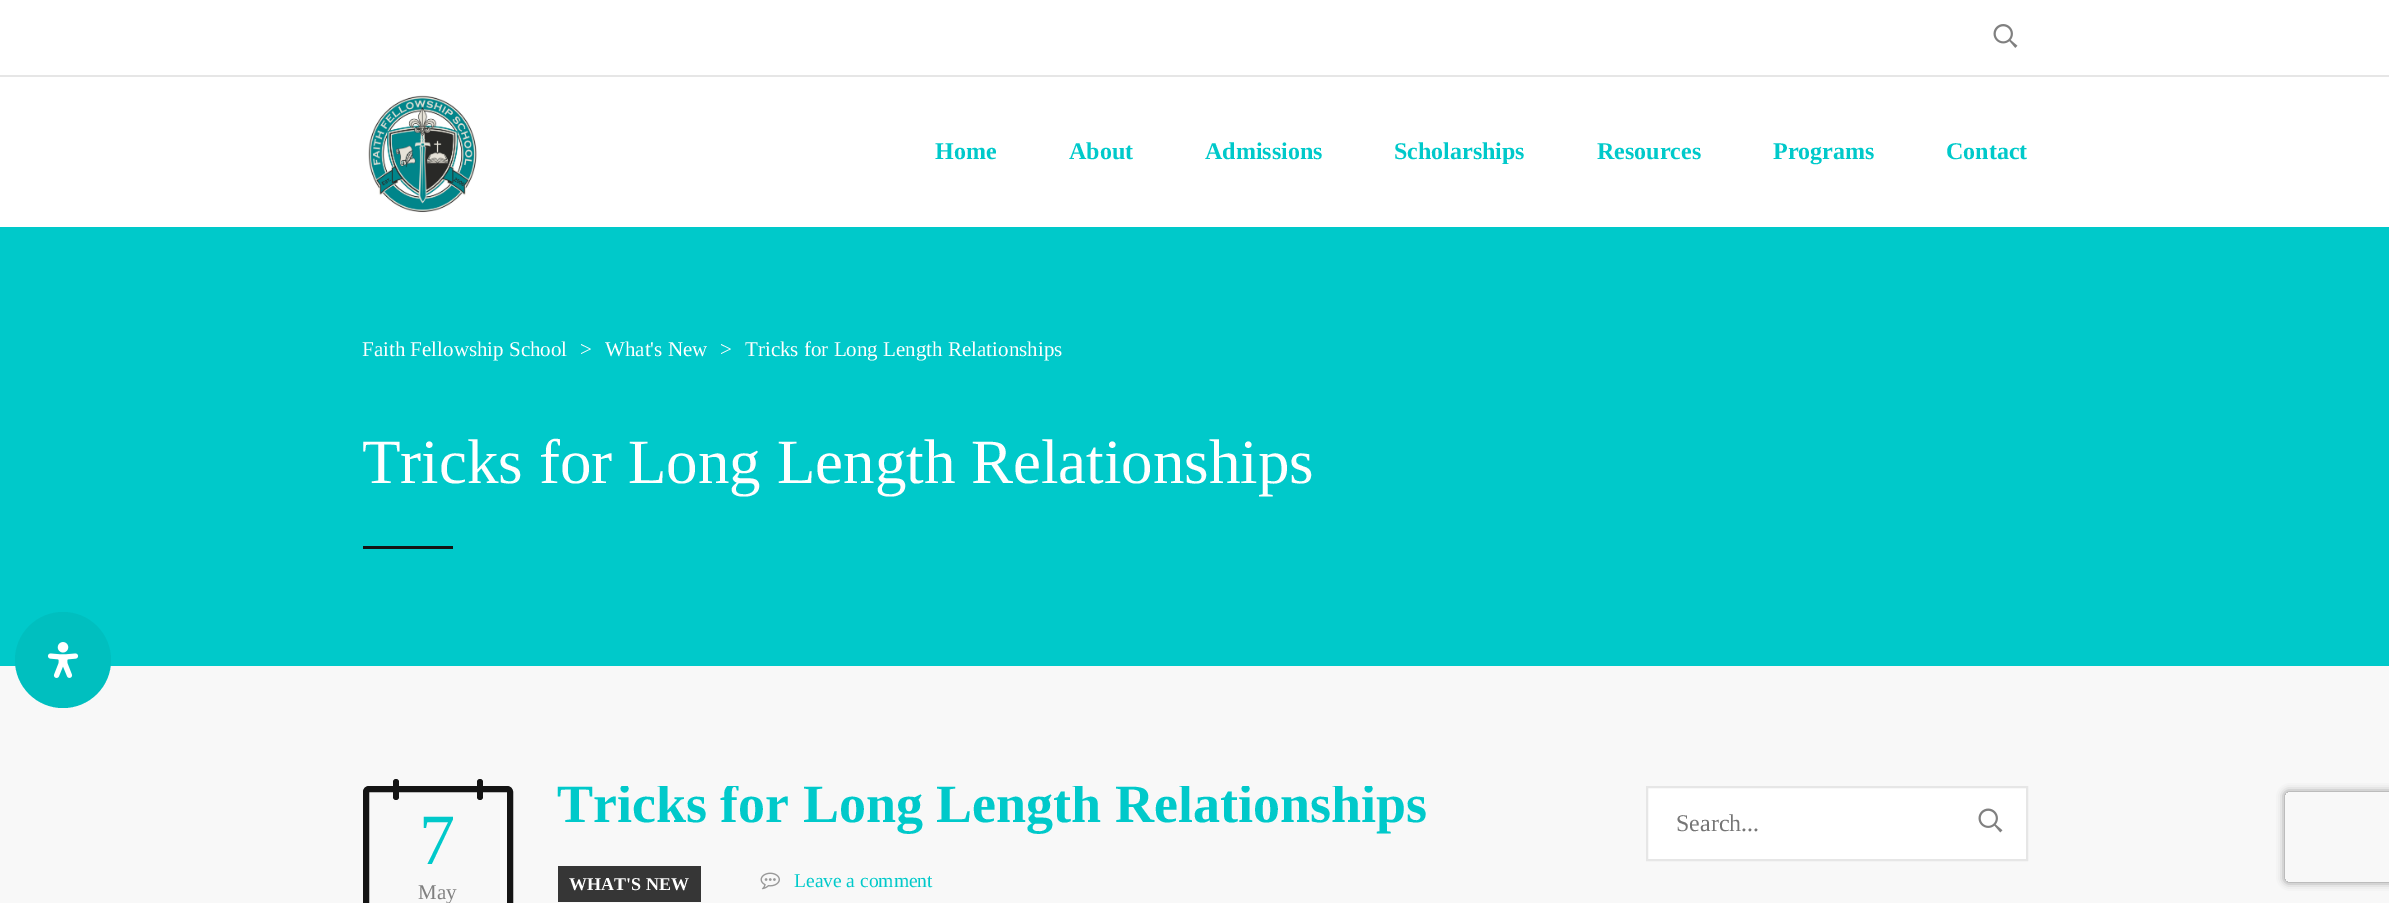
%!PS
<< /PageSize [2389 903] /PageUsesTransparency true >> setpagedevice
/rgb { 3 { 255 div 3 1 roll } repeat setrgbcolor } def
/font { [ exch dup neg 0 0 3 -1 roll 0 0 ] selectfont } def
/text { moveto show } def
/alpha { dup .setfillconstantalpha .setstrokeconstantalpha } def
/circle { newpath 0 360 arc closepath } def
/roundrect { 5 dict begin { /r /h /w /y /x } { exch def } forall
  x r add y moveto x w add y 2 copy h add r arct x w add y h add x 1 index r arct
  x y h add x y r arct x y 2 copy exch w add exch r arct closepath end } def
/shadow { 12 dict begin { /a /b /q /h /w /y /x } { exch def } forall gsave /was 0 def
  9 -2 -9 { dup b mul 4 div /e exch def 1 sub .425 mul 2.718 exch exp 1 add a .99 .min exch div /now exch def
    1 1 now sub 1 was sub div sub alpha /was now def
    w h .min e 2 mul add 0 gt { x e sub y e sub w e 2 mul add h e 2 mul add
      q e add b .6 mul add w h .min 2 div e add .min 0 .max roundrect fill } if } for grestore end } def
/picture { 5 dict begin { /h /w /y /x /name } { exch def } forall
  gsave x y translate w h scale
  w h 8 [w 0 0 h 0 0] name (r) file false 3 colorimage grestore end } def
0 .pushpdf14devicefilter
0 903 translate 1 -1 scale
4 setmiterlimit
248 248 248 rgb
0 0 2389 903 rectfill
0 201 202 rgb
0 227 2389 439 rectfill
0 191 191 rgb
63 660 48 circle fill
(img_01.rgb) 47 642 32 36 picture
255 255 255 rgb
0 0 2389 75 rectfill
230 230 230 rgb
0 75 2389 2 rectfill
(img_02.rgb) 1993 24 25 24 picture
255 255 255 rgb
0 77 2389 150 rectfill
(img_03.rgb) 368 95 109 118 picture
20 20 20 rgb
363 546 90 3 rectfill
6 setlinewidth
366 789 144 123 3 roundrect stroke
393 779 6 21 3 roundrect fill
477 779 6 21 3 roundrect fill
54 54 54 rgb
558 866 143 36 rectfill
(img_04.rgb) 760 872 20 18 picture
255 255 255 rgb
1647 787 moveto 380 0 rlineto 0 73 rlineto -380 0 rlineto closepath gsave fill grestore
230 230 230 rgb
2 setlinewidth
stroke
(img_05.rgb) 1978 808 25 25 picture
gsave
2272 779 moveto 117 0 rlineto 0 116 rlineto -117 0 rlineto closepath 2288 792 moveto 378 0 rlineto 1.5 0 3 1.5 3 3 rcurveto 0 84 rlineto 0 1.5 -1.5 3 -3 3 rcurveto -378 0 rlineto -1.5 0 -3 -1.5 -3 -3 rcurveto 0 -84 rlineto 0 -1.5 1.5 -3 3 -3 rcurveto closepath eoclip newpath
128 128 128 rgb
2285 792 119 90 3 4 1 shadow
grestore
/Tinos-Bold 24 font
0 201 202 rgb
(Home) 935 159 text
(About) 1069 159 text
(Admissions) 1205 159 text
(Scholarships) 1394 159 text
(Resources) 1597 159 text
(Programs) 1773 159 text
(Contact) 1946 159 text
/Tinos-Regular 21 font
255 255 255 rgb
(Faith Fellowship School) 362 356 text
(>) 580 356 text
(What's New) 605 356 text
(>) 720 356 text
(Tricks for Long Length Relationships) 745 356 text
/Tinos-Regular 63 font
(Tricks for Long Length Relationships) 362 483 text
/Tinos-Regular 72 font
0 201 202 rgb
(7) 419 864 text
/Tinos-Regular 21 font
128 128 128 rgb
(May) 418 899 text
gsave
513 786 1088 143 rectclip
/Tinos-Bold 54 font
0 201 202 rgb
(Tricks for Long Length Relationships) 557 822 text
grestore
/Tinos-Bold 18 font
255 255 255 rgb
(WHAT'S NEW) 569 890 text
/Tinos-Regular 19.5 font
0 201 202 rgb
(Leave a comment) 794 887 text
/Tinos-Regular 24 font
117 117 117 rgb
(Search...) 1676 831 text
.poppdf14devicefilter showpage
